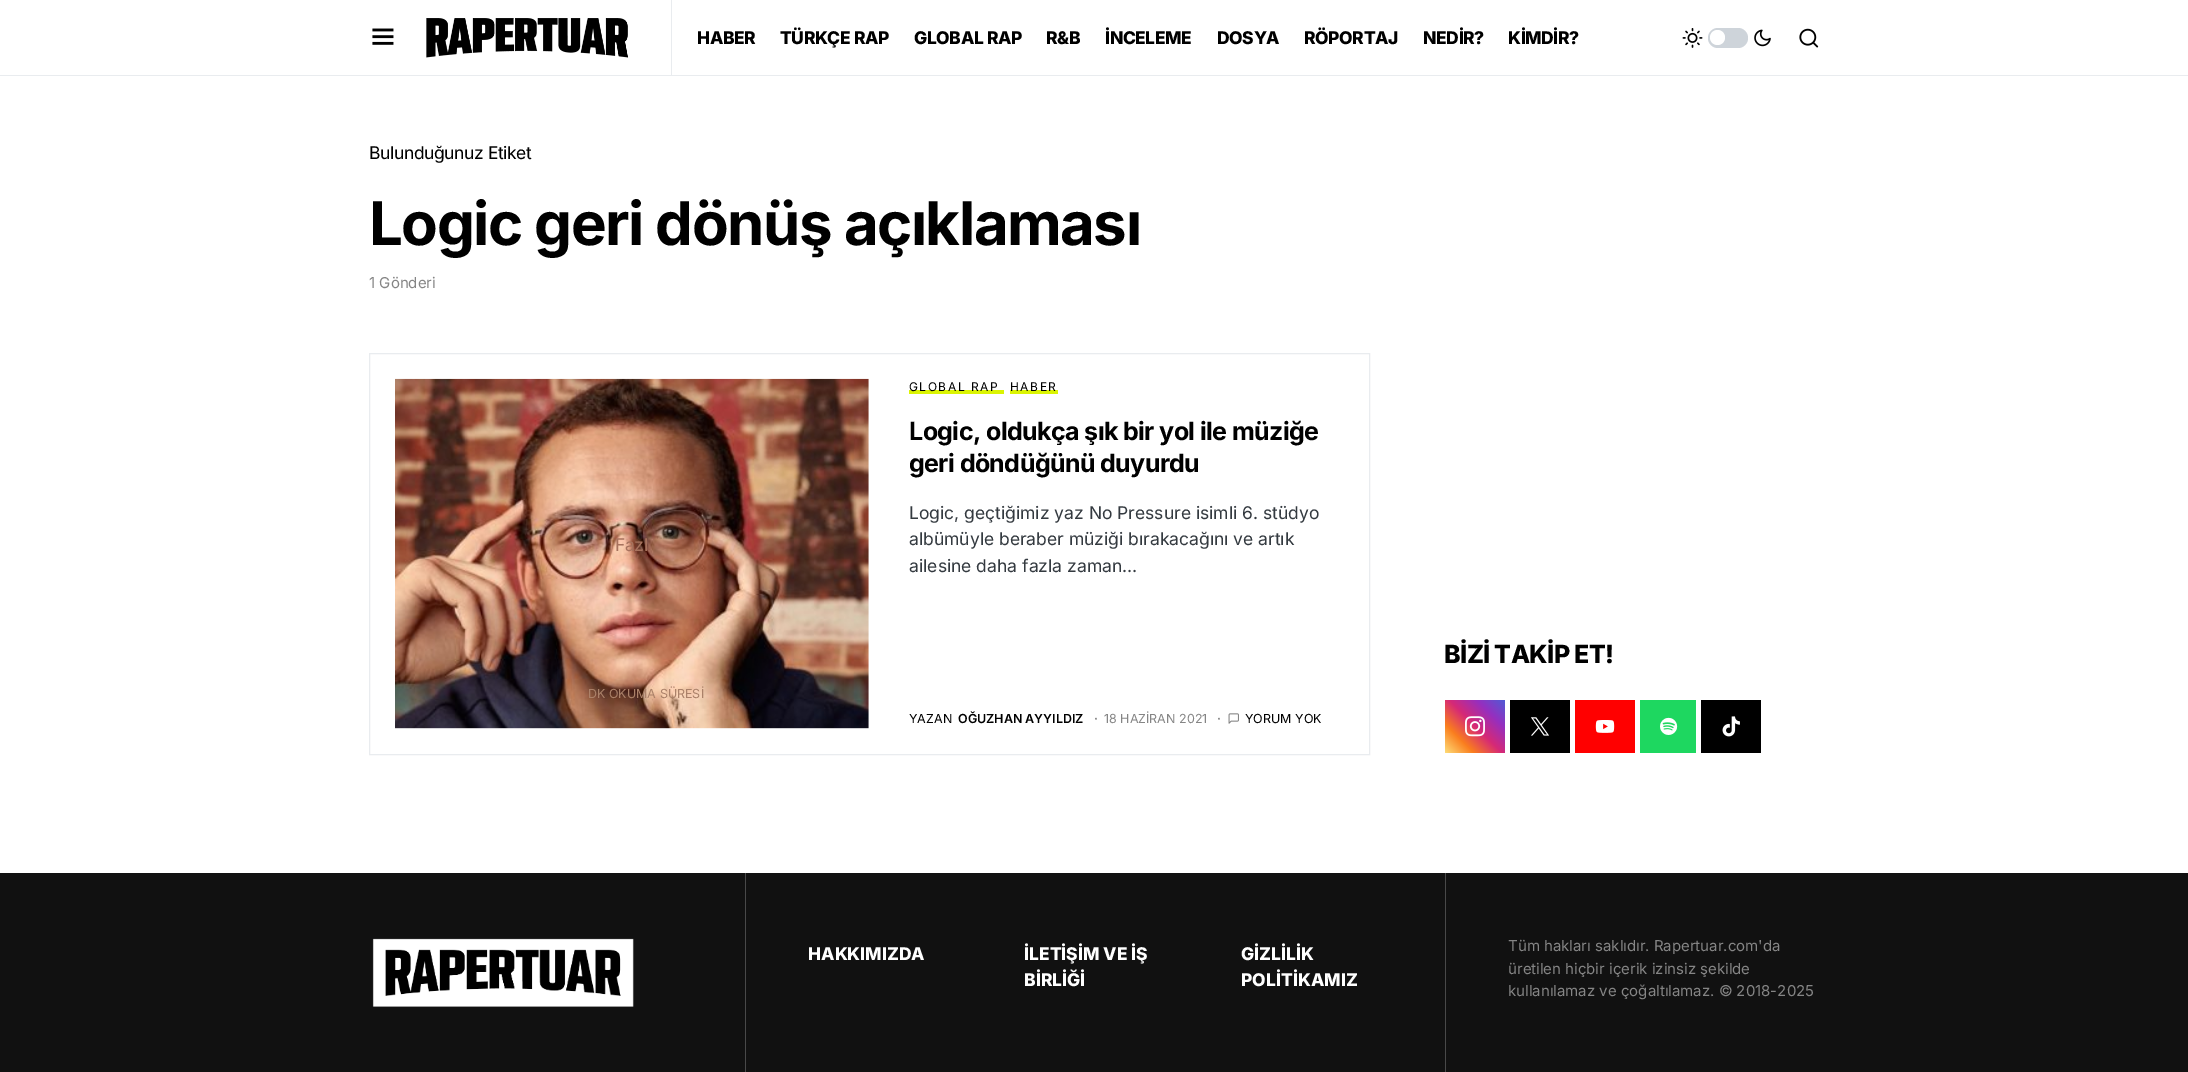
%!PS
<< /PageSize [2188 1072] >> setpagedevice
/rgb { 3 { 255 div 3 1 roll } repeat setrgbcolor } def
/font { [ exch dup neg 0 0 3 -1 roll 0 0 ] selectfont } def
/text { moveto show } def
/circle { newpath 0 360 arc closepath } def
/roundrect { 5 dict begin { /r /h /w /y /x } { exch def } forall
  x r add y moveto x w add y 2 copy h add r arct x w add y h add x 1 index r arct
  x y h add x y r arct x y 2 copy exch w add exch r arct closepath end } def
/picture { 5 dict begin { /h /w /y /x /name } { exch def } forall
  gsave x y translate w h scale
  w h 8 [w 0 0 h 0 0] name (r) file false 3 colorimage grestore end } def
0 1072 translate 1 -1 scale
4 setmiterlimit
255 255 255 rgb
0 0 2188 1072 rectfill
233 236 239 rgb
0 75 2188 1 rectfill
(img_01.rgb) 372 28 22 17 picture
(img_02.rgb) 426 18 202 40 picture
671 0 1 75 rectfill
(img_03.rgb) 1682 28 21 20 picture
206 212 218 rgb
1708 28 40 20 10 roundrect fill
255 255 255 rgb
1717.5 37.5 7.5 circle fill
(img_04.rgb) 1754 29 17 18 picture
(img_05.rgb) 1799 28 20 20 picture
233 236 239 rgb
369.5 353.5 1000 401 rectstroke
(img_06.rgb) 395 378 474 351 picture
219 244 2 rgb
909 390 95 4 rectfill
1010 390 48 4 rectfill
(img_07.rgb) 1228 713 11 11 picture
gsave 1445 700 moveto 60 0 rlineto 0 53 rlineto -60 0 rlineto closepath clip newpath
<< /ShadingType 2 /ColorSpace /DeviceRGB /Coords [1447 754 1503 698] /Extend [true true] /Function << /FunctionType 3 /Domain [0 1] /Functions [<< /FunctionType 2 /Domain [0 1] /C0 [0.996 0.855 0.459] /C1 [0.98 0.494 0.118] /N 1 >> << /FunctionType 2 /Domain [0 1] /C0 [0.98 0.494 0.118] /C1 [0.839 0.161 0.463] /N 1 >> << /FunctionType 2 /Domain [0 1] /C0 [0.839 0.161 0.463] /C1 [0.588 0.184 0.749] /N 1 >> << /FunctionType 2 /Domain [0 1] /C0 [0.588 0.184 0.749] /C1 [0.31 0.357 0.835] /N 1 >>] /Bounds [0.25 0.5 0.75] /Encode [0 1 0 1 0 1 0 1] >> >> shfill grestore
(img_08.rgb) 1465 716 20 21 picture
0 0 0 rgb
1510 700 60 53 rectfill
(img_09.rgb) 1531 717 18 19 picture
255 0 0 rgb
1575 700 60 53 rectfill
(img_10.rgb) 1595 720 20 13 picture
30 215 96 rgb
1640 700 56 53 rectfill
(img_11.rgb) 1660 717 18 18 picture
0 0 0 rgb
1701 700 60 53 rectfill
(img_12.rgb) 1722 716 18 21 picture
17 17 17 rgb
0 873 2188 199 rectfill
(img_13.rgb) 372 938 262 69 picture
73 73 73 rgb
745 873 1 199 rectfill
1445 873 1 199 rectfill
/Inter-ExtraBold 17.5 font
0 0 0 rgb
697 44 moveto -0.4 0 (HABER) ashow
780 44 moveto -0.4 0 (TÜRKÇE RAP) ashow
914 44 moveto -0.4 0 (GLOBAL RAP) ashow
1046 44 moveto -0.4 0 (R&B) ashow
1105 44 moveto -0.4 0 (İNCELEME) ashow
1217 44 moveto -0.4 0 (DOSYA) ashow
1304 44 moveto -0.4 0 (RÖPORTAJ) ashow
1423 44 moveto -0.4 0 (NEDİR?) ashow
1508 44 moveto -0.4 0 (KİMDİR?) ashow
/Inter-Regular 17.5 font
369 159 moveto -0.4 0 (Bulunduğunuz Etiket) ashow
/Inter-Bold 60 font
369 245 moveto -1.5 0 (Logic geri dönüş açıklaması) ashow
/Inter-Regular 15 font
133 133 133 rgb
(1 Gönderi) 369 288 text
/Inter-Regular 17.5 font
167 114 93 rgb
615 551 moveto -0.4 0 (Fazl) ashow
/Inter-Regular 12.5 font
171 129 105 rgb
(DK OKUMA SÜRESİ) 588 698 text
/Inter-Regular 12 font
0 0 0 rgb
909 391 moveto 1.5 0 (GLOBAL RAP) ashow
1010 391 moveto 1.5 0 (HABER) ashow
/Inter-Bold 25 font
909 440 moveto -0.6 0 (Logic, oldukça şık bir yol ile müziğe) ashow
909 472 moveto -0.6 0 (geri döndüğünü duyurdu) ashow
/Inter-Regular 17.5 font
52 58 64 rgb
(Logic, geçtiğimiz yaz No Pressure isimli 6. stüdyo) 909 519 text
(albümüyle beraber müziği bırakacağını ve artık) 909 545 text
(ailesine daha fazla zaman…) 909 572 text
/Inter-Regular 12.5 font
0 0 0 rgb
(YAZAN) 909 723 text
/Inter-SemiBold 12.5 font
(OĞUZHAN AYYILDIZ) 958 723 text
133 133 133 rgb
(·) 1094 723 text
/Inter-Regular 12.5 font
(18 HAZİRAN 2021) 1104 723 text
/Inter-SemiBold 12.5 font
(·) 1217 723 text
/Inter-Regular 12.5 font
0 0 0 rgb
(YORUM YOK) 1245 723 text
/Inter-ExtraBold 25 font
1444 663 moveto -0.6 0 (BİZİ TAKİP ET!) ashow
/Inter-ExtraBold 17.5 font
255 255 255 rgb
(HAKKIMIZDA) 808 960 text
(İLETİŞİM VE İŞ) 1024 960 text
(BİRLİĞİ) 1024 986 text
(GİZLİLİK) 1241 960 text
(POLİTİKAMIZ) 1241 986 text
/Inter-Regular 15 font
133 133 133 rgb
(Tüm hakları saklıdır. Rapertuar.com'da) 1508 951 text
(üretilen hiçbir içerik izinsiz şekilde) 1508 974 text
(kullanılamaz ve çoğaltılamaz. © 2018-2025) 1508 996 text
showpage
